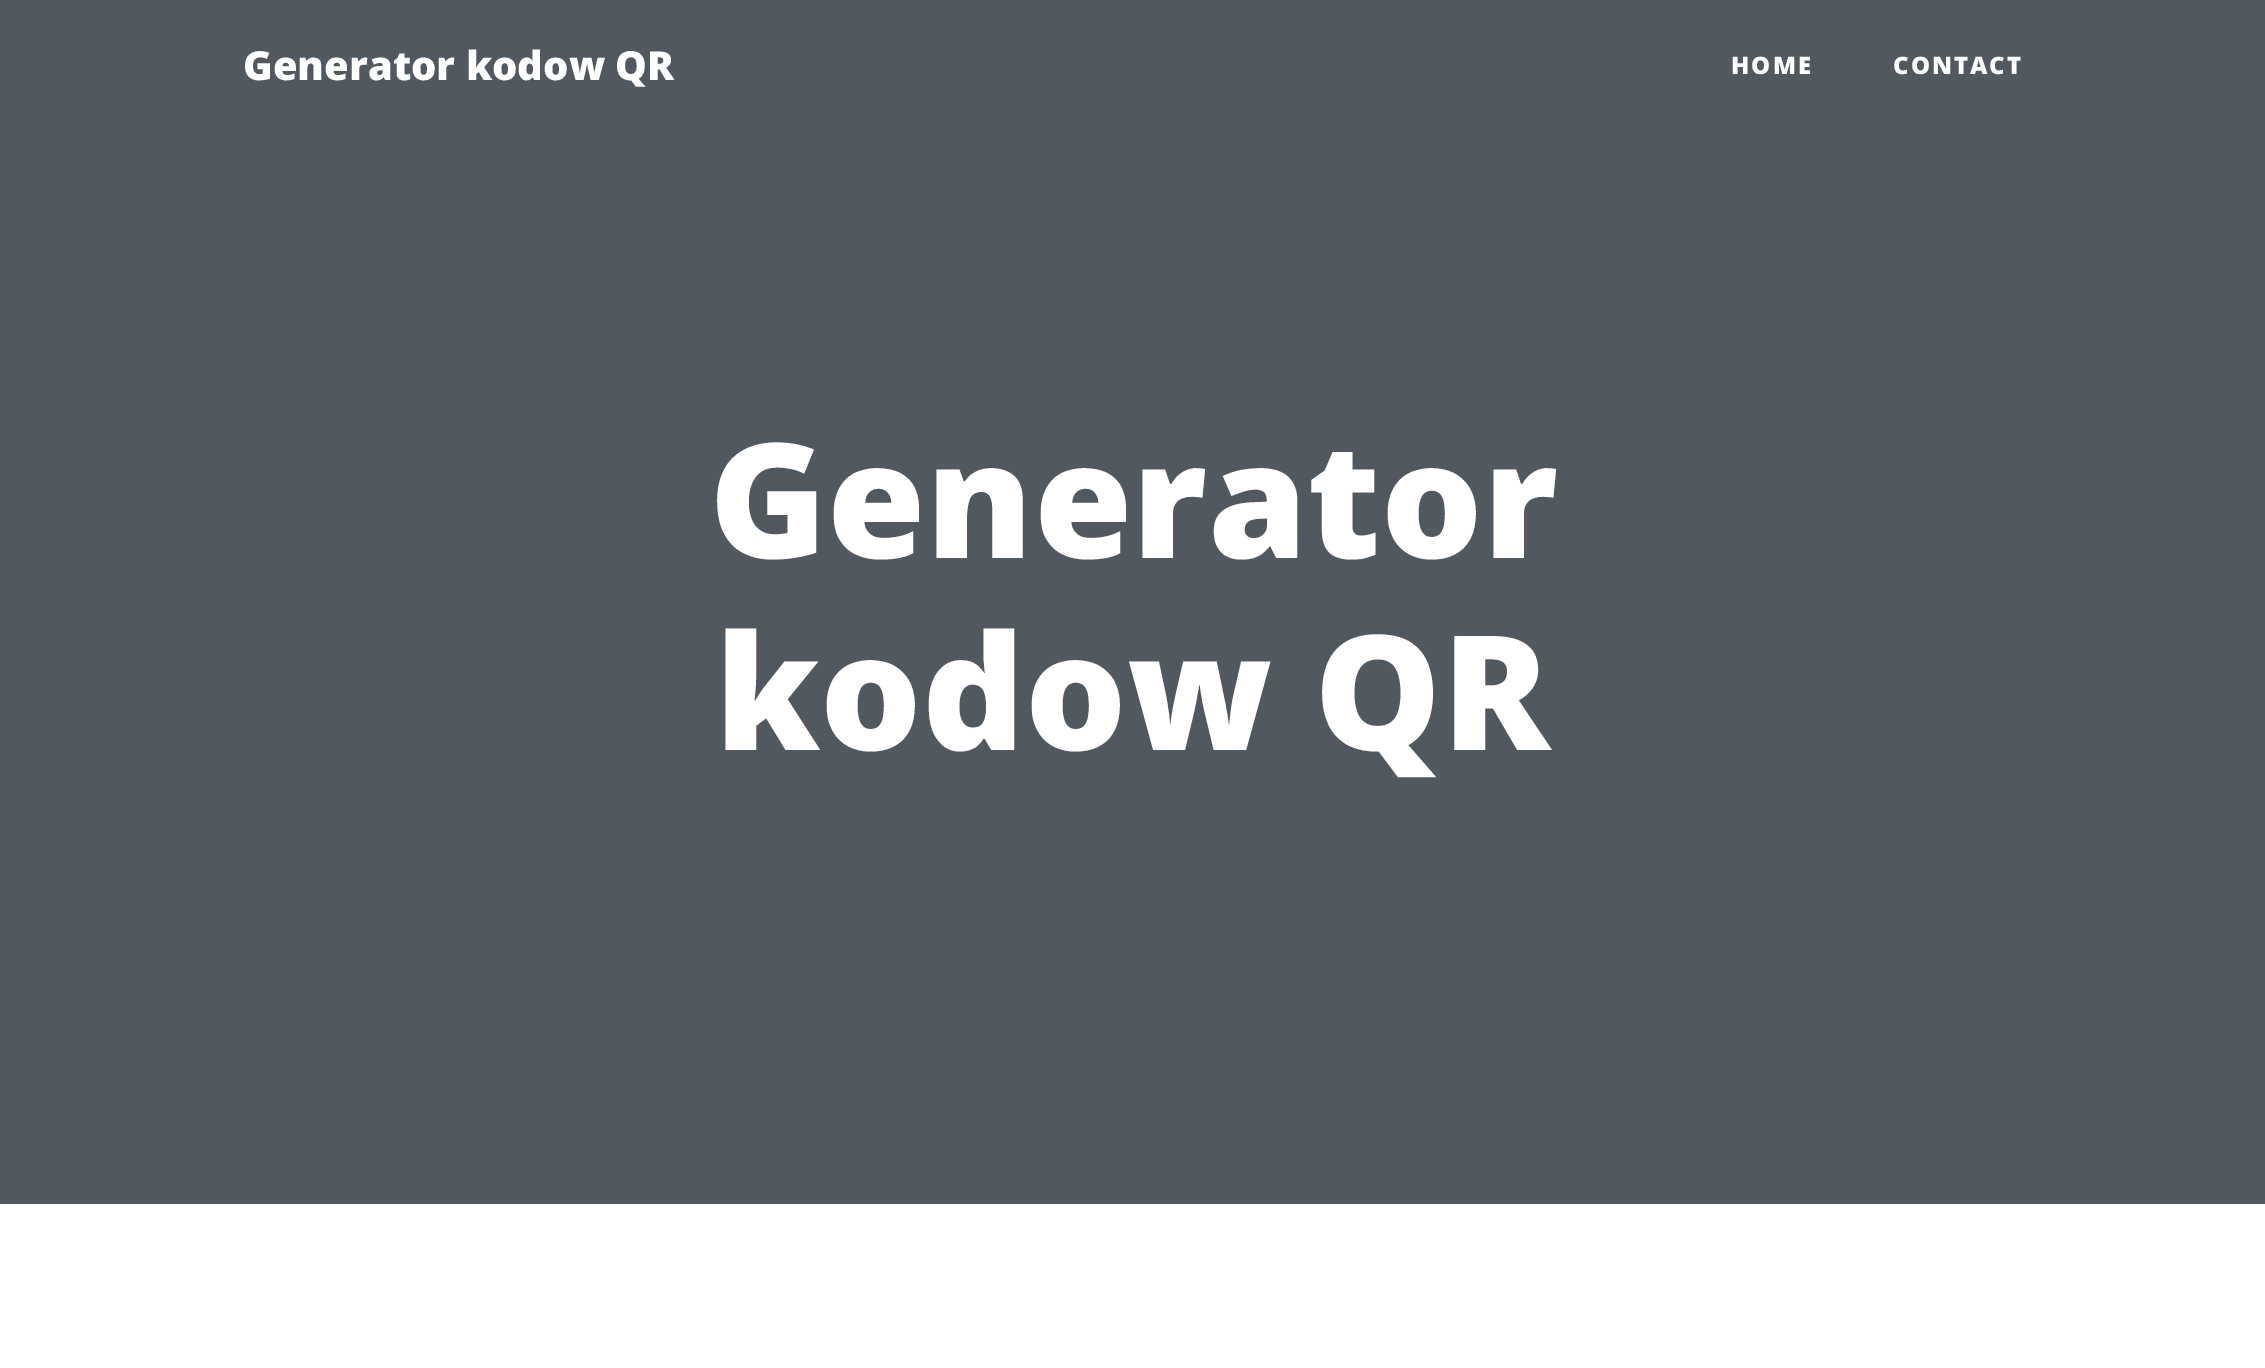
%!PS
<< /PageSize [2265 1368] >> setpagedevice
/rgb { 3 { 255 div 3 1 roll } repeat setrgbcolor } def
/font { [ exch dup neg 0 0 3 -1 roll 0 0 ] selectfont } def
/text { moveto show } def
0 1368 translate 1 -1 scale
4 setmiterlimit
255 255 255 rgb
0 0 2265 1368 rectfill
82 88 96 rgb
0 0 2265 1204 rectfill
/OpenSans-ExtraBold 40 font
255 255 255 rgb
(Generator kodow QR) 243 80 text
/OpenSans-ExtraBold 24 font
1731 74 moveto 2 0 (HOME) ashow
1893 74 moveto 2 0 (CONTACT) ashow
/OpenSans-ExtraBold 160 font
(Generator) 709 558 text
(kodow QR) 715 750 text
showpage
